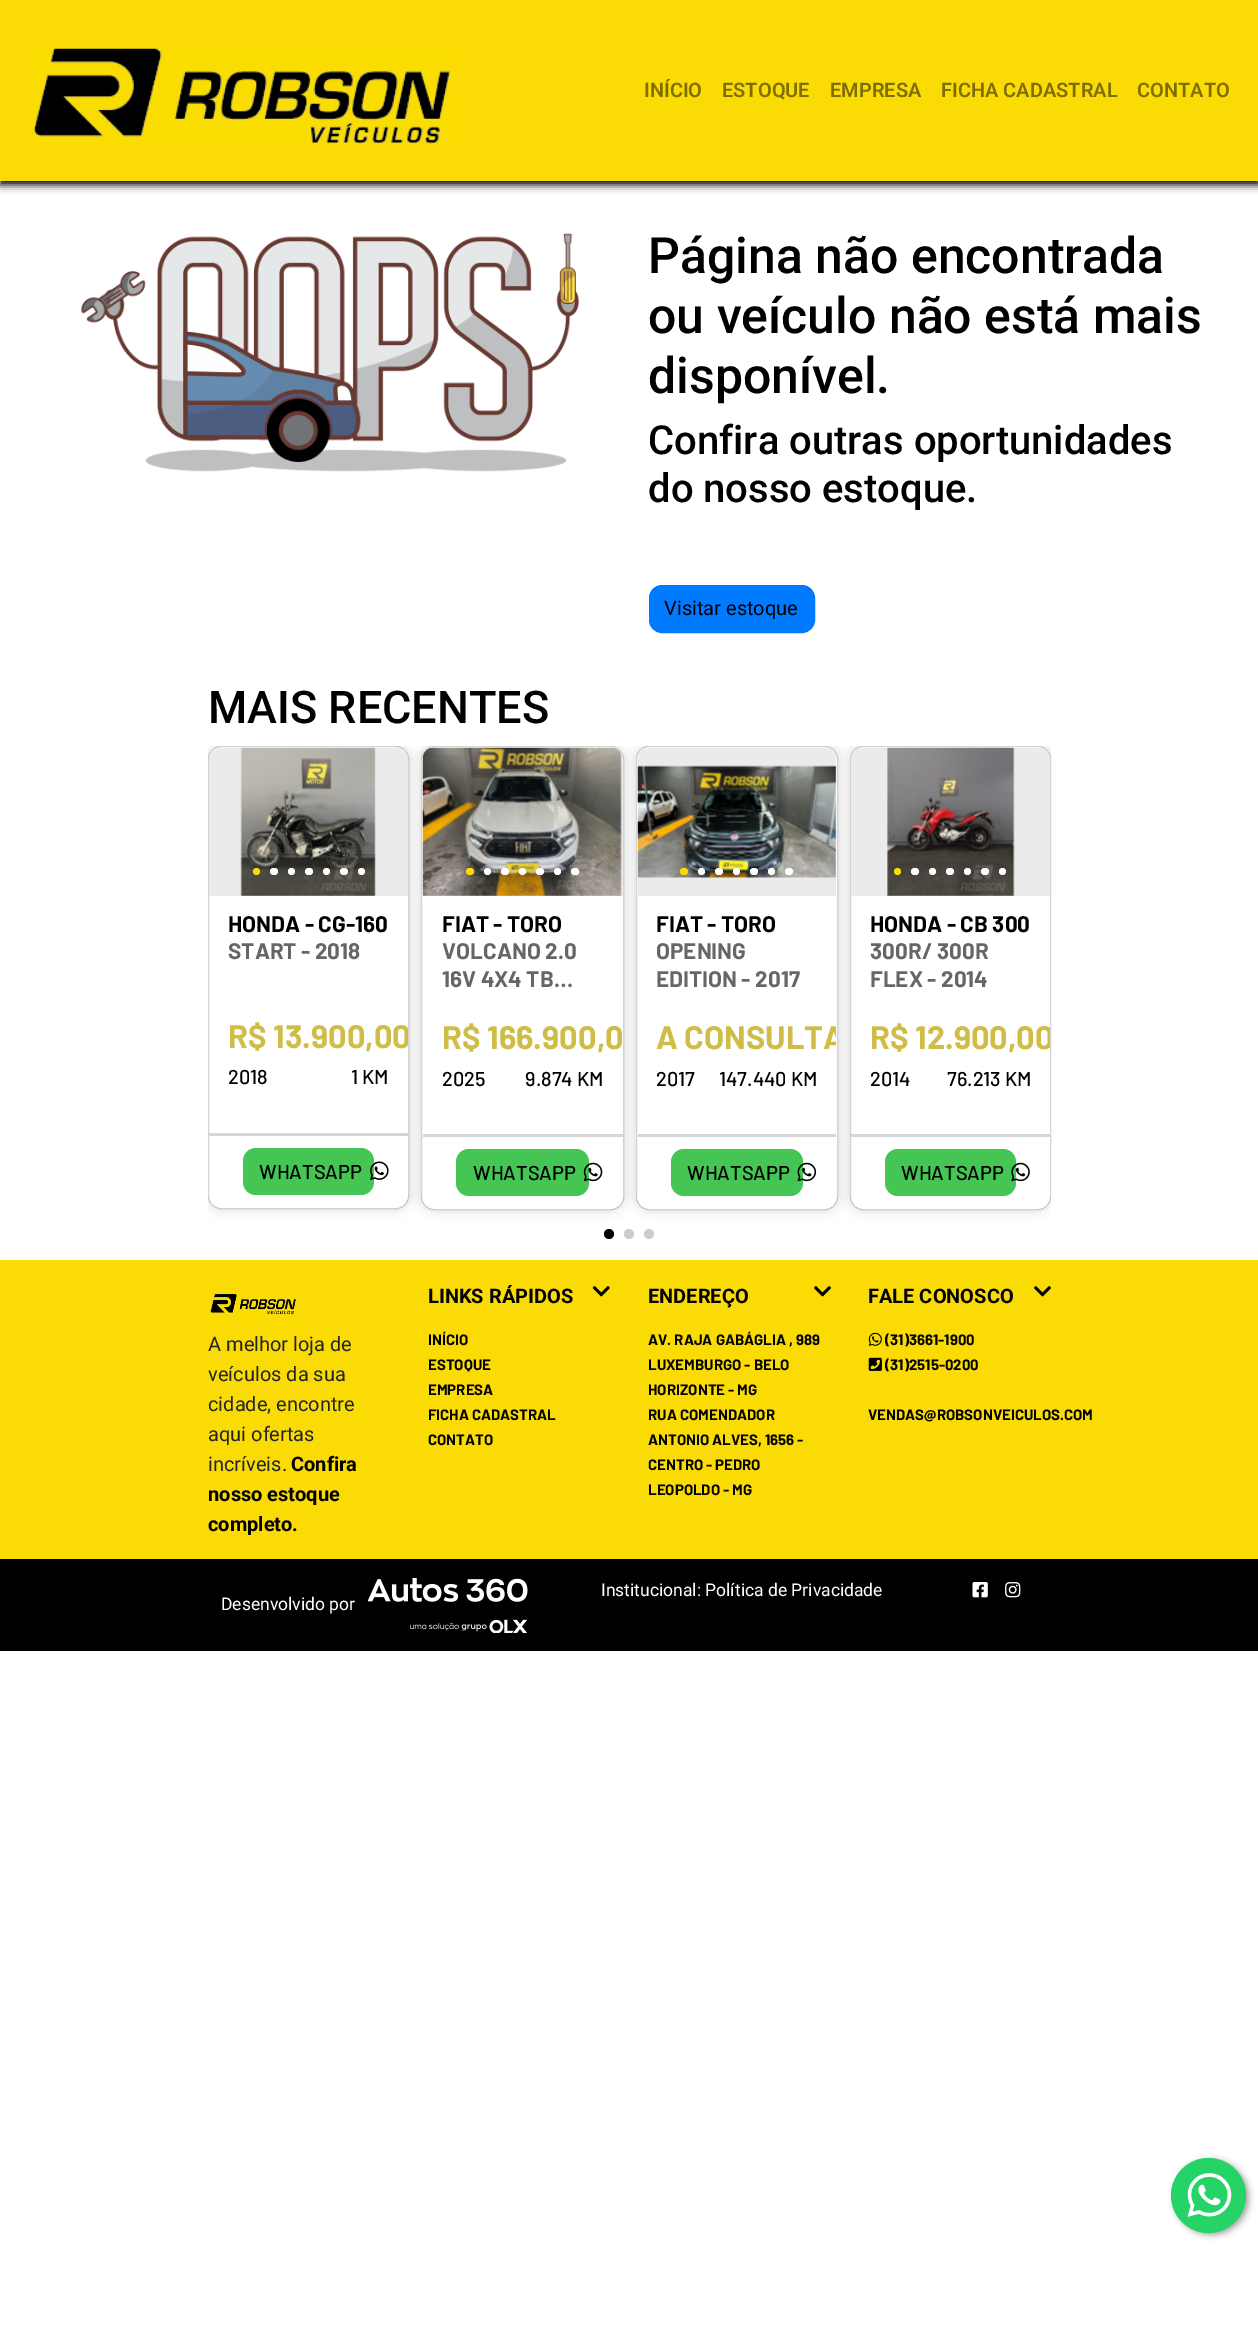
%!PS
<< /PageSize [1258 2344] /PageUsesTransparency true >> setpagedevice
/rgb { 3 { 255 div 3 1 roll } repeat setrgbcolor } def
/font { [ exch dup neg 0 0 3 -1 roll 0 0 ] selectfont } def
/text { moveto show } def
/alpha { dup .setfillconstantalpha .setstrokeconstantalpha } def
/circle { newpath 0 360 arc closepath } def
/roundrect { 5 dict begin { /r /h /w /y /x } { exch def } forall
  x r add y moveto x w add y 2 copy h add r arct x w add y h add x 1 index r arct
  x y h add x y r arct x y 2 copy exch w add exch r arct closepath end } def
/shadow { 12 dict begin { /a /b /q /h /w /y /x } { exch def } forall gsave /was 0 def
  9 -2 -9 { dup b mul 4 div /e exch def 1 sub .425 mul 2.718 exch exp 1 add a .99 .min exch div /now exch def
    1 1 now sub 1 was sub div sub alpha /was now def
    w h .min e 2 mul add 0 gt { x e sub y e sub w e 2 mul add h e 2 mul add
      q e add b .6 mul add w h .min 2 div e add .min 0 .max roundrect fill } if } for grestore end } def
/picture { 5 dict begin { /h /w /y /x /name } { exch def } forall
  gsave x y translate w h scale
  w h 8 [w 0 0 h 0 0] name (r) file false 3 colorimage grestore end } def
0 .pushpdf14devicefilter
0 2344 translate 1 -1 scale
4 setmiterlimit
255 255 255 rgb
0 0 1258 2344 rectfill
0 0 0 rgb
0 4 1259 181 0 4 1 shadow
251 219 4 rgb
0 0 1258 181 rectfill
(img_01.rgb) 33 48 418 96 picture
(img_02.rgb) 81 233 498 239 picture
0 123 255 rgb
649.5 585.5 165 47 12.5 roundrect gsave fill grestore
stroke
gsave
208 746 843 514 rectclip
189 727 moveto 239 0 rlineto 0 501 rlineto -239 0 rlineto closepath 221 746 moveto 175 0 rlineto 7 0 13 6 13 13 rcurveto 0 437 rlineto 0 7 -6 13 -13 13 rcurveto -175 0 rlineto -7 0 -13 -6 -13 -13 rcurveto 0 -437 rlineto 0 -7 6 -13 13 -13 rcurveto closepath eoclip newpath
0 0 0 rgb
208 746 201 463 13 6 0.16 shadow
grestore
0.17 alpha
0 0 0 rgb
208.5 746.5 200 462 12.5 roundrect stroke
1 alpha
235 235 235 rgb
220 748 moveto 177 0 rlineto 6 0 11 5 11 11 rcurveto 0 137 rlineto -199 0 rlineto 0 -137 rlineto 0 -6 5 -11 11 -11 rcurveto closepath fill
(img_03.rgb) 240 747 136 149 picture
251 219 4 rgb
256.5 871.5 3.5 circle fill
255 255 255 rgb
270 868 8 7 3.5 roundrect fill
291.5 871.5 3.5 circle fill
305 868 8 7 3.5 roundrect fill
326.5 871.5 3.5 circle fill
340 868 8 7 3.5 roundrect fill
361.5 871.5 3.5 circle fill
214 214 214 rgb
209 1133 199 3 rectfill
69 197 84 rgb
243 1148 131 47 13 roundrect fill
(img_04.rgb) 370 1161 19 19 picture
gsave
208 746 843 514 rectclip
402 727 moveto 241 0 rlineto 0 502 rlineto -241 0 rlineto closepath 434 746 moveto 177 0 rlineto 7 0 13 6 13 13 rcurveto 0 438 rlineto 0 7 -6 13 -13 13 rcurveto -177 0 rlineto -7 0 -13 -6 -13 -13 rcurveto 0 -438 rlineto 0 -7 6 -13 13 -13 rcurveto closepath eoclip newpath
0 0 0 rgb
421 746 203 464 13 6 0.16 shadow
grestore
0.17 alpha
0 0 0 rgb
421.5 746.5 202 463 12.5 roundrect stroke
1 alpha
235 235 235 rgb
434 748 moveto 178 0 rlineto 6 0 11 5 11 11 rcurveto 0 137 rlineto -200 0 rlineto 0 -137 rlineto 0 -6 5 -11 11 -11 rcurveto closepath fill
(img_05.rgb) 422 747 200 150 picture
251 219 4 rgb
466 868 8 7 3.5 roundrect fill
255 255 255 rgb
487.5 871.5 3.5 circle fill
501 868 8 7 3.5 roundrect fill
522.5 871.5 3.5 circle fill
536 868 8 7 3.5 roundrect fill
557.5 871.5 3.5 circle fill
571 868 8 7 3.5 roundrect fill
423 896 199 1 rectfill
214 214 214 rgb
423 1134 200 3 rectfill
69 197 84 rgb
456 1149 133 47 13 roundrect fill
(img_06.rgb) 583 1162 20 20 picture
gsave
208 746 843 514 rectclip
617 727 moveto 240 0 rlineto 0 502 rlineto -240 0 rlineto closepath 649 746 moveto 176 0 rlineto 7 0 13 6 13 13 rcurveto 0 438 rlineto 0 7 -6 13 -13 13 rcurveto -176 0 rlineto -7 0 -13 -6 -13 -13 rcurveto 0 -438 rlineto 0 -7 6 -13 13 -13 rcurveto closepath eoclip newpath
0 0 0 rgb
636 746 202 464 13 6 0.16 shadow
grestore
0.17 alpha
0 0 0 rgb
636.5 746.5 201 463 12.5 roundrect stroke
1 alpha
235 235 235 rgb
649 748 moveto 176 0 rlineto 6 0 11 5 11 11 rcurveto 0 137 rlineto -198 0 rlineto 0 -137 rlineto 0 -6 5 -11 11 -11 rcurveto closepath fill
(img_07.rgb) 637 765 200 113 picture
251 219 4 rgb
680 868 8 7 3.5 roundrect fill
255 255 255 rgb
701.5 871.5 3.5 circle fill
715 868 8 7 3.5 roundrect fill
736.5 871.5 3.5 circle fill
750 868 8 7 3.5 roundrect fill
771.5 871.5 3.5 circle fill
785 868 8 7 3.5 roundrect fill
214 214 214 rgb
638 1134 198 3 rectfill
69 197 84 rgb
671 1149 132 47 13 roundrect fill
(img_08.rgb) 797 1162 20 20 picture
gsave
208 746 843 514 rectclip
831 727 moveto 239 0 rlineto 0 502 rlineto -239 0 rlineto closepath 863 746 moveto 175 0 rlineto 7 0 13 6 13 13 rcurveto 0 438 rlineto 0 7 -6 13 -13 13 rcurveto -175 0 rlineto -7 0 -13 -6 -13 -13 rcurveto 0 -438 rlineto 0 -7 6 -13 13 -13 rcurveto closepath eoclip newpath
0 0 0 rgb
850 746 201 464 13 6 0.16 shadow
grestore
0.17 alpha
0 0 0 rgb
850.5 746.5 200 463 12.5 roundrect stroke
1 alpha
235 235 235 rgb
862 748 moveto 177 0 rlineto 6 0 11 5 11 11 rcurveto 0 137 rlineto -199 0 rlineto 0 -137 rlineto 0 -6 5 -11 11 -11 rcurveto closepath fill
(img_09.rgb) 887 747 128 149 picture
251 219 4 rgb
897.5 871.5 3.5 circle fill
255 255 255 rgb
911 868 8 7 3.5 roundrect fill
932.5 871.5 3.5 circle fill
946 868 8 7 3.5 roundrect fill
967.5 871.5 3.5 circle fill
981 868 8 7 3.5 roundrect fill
1002.5 871.5 3.5 circle fill
214 214 214 rgb
851 1134 199 3 rectfill
69 197 84 rgb
885 1149 131 47 13 roundrect fill
(img_10.rgb) 1011 1162 19 20 picture
0 0 0 rgb
609 1234 5 circle fill
204 204 204 rgb
629 1234 5 circle fill
649 1234 5 circle fill
251 219 4 rgb
0 1260 1258 299 rectfill
(img_11.rgb) 210 1294 86 21 picture
(img_12.rgb) 592 1286 18 11 picture
(img_13.rgb) 814 1286 17 11 picture
(img_13.rgb) 1034 1286 17 11 picture
(img_14.rgb) 868 1332 14 14 picture
(img_15.rgb) 868 1357 14 14 picture
0 0 0 rgb
0 1559 1258 92 rectfill
(img_16.rgb) 972 1582 16 16 picture
(img_17.rgb) 1005 1582 16 16 picture
(img_18.rgb) 368 1578 160 55 picture
1174 2160 75 75 37.5 3 0.34 shadow
37 211 102 rgb
1208.5 2195.5 37.5 circle fill
(img_19.rgb) 1187 2173 45 44 picture
/Roboto-SemiBold 20 font
126 110 2 rgb
(INÍCIO) 644 97 text
(ESTOQUE) 722 97 text
(EMPRESA) 830 97 text
(FICHA CADASTRAL) 941 97 text
(CONTATO) 1137 97 text
/Roboto-Medium 50 font
0 0 0 rgb
(Página não encontrada) 648 273 text
(ou veículo não está mais) 648 333 text
(disponível.) 648 393 text
/Roboto-Medium 40 font
(Confira outras oportunidades) 648 454 text
(do nosso estoque.) 648 502 text
/Roboto-Regular 20 font
(Visitar estoque) 664 615 text
/Roboto-Medium 45 font
(MAIS RECENTES) 208 723 text
/Barlow-Bold 22.5 font
(HONDA - CG-160) 228 932 text
102 102 102 rgb
(START - 2018) 228 959 text
gsave
209 748 199 460 11 roundrect clip newpath
/Barlow-Bold 32.5 font
207 189 72 rgb
(R$ 13.900,00) 228 1048 text
grestore
/Barlow-Medium 20 font
0 0 0 rgb
(2018) 228 1084 text
(1 KM) 351 1084 text
(WHATSAPP) 259 1179 text
/Barlow-Bold 22.5 font
(FIAT - TORO) 442 932 text
102 102 102 rgb
(VOLCANO 2.0) 442 959 text
(16V 4X4 TB…) 442 987 text
/Barlow-Bold 32.5 font
207 189 72 rgb
(R$ 166.900,0) 442 1049 text
/Barlow-Medium 20 font
0 0 0 rgb
(2025) 442 1086 text
(9.874 KM) 525 1086 text
(WHATSAPP) 473 1180 text
/Barlow-Bold 22.5 font
(FIAT - TORO) 656 932 text
102 102 102 rgb
(OPENING) 656 959 text
(EDITION - 2017) 656 987 text
gsave
638 748 198 461 11 roundrect clip newpath
/Barlow-Bold 32.5 font
207 189 72 rgb
(A CONSULTA) 656 1049 text
grestore
/Barlow-Medium 20 font
0 0 0 rgb
(2017) 656 1086 text
(147.440 KM) 719 1086 text
(WHATSAPP) 687 1180 text
/Barlow-Bold 22.5 font
(HONDA - CB 300) 870 932 text
102 102 102 rgb
(300R/ 300R) 870 959 text
(FLEX - 2014) 870 987 text
gsave
851 748 199 461 11 roundrect clip newpath
/Barlow-Bold 32.5 font
207 189 72 rgb
(R$ 12.900,00) 870 1049 text
grestore
/Barlow-Medium 20 font
0 0 0 rgb
(2014) 870 1086 text
(76.213 KM) 947 1086 text
(WHATSAPP) 901 1180 text
/Roboto-Regular 20 font
33 37 41 rgb
(A melhor loja de) 208 1351 text
(veículos da sua) 208 1381 text
(cidade, encontre) 208 1411 text
(aqui ofertas) 208 1441 text
(incríveis.) 208 1471 text
/Roboto-Bold 20 font
0 0 0 rgb
(Confira) 291 1471 text
(nosso estoque) 208 1501 text
(completo.) 208 1531 text
(LINKS RÁPIDOS) 428 1303 text
/Barlow-Bold 15 font
(INÍCIO) 428 1345 text
(ESTOQUE) 428 1370 text
(EMPRESA) 428 1395 text
(FICHA CADASTRAL) 428 1420 text
(CONTATO) 428 1445 text
/Roboto-Bold 20 font
(ENDEREÇO) 648 1303 text
/Barlow-Bold 15 font
(AV. RAJA GABÁGLIA , 989) 648 1345 text
(LUXEMBURGO - BELO) 648 1370 text
(HORIZONTE - MG) 648 1395 text
(RUA COMENDADOR) 648 1420 text
(ANTONIO ALVES, 1656 -) 648 1445 text
(CENTRO - PEDRO) 648 1470 text
(LEOPOLDO - MG) 648 1495 text
/Roboto-Bold 20 font
(FALE CONOSCO) 868 1303 text
/Barlow-Bold 15 font
(\(31\)3661-1900) 885 1345 text
(\(31\)2515-0200) 885 1370 text
(VENDAS@ROBSONVEICULOS.COM) 868 1420 text
/Roboto-Regular 17.5 font
255 255 255 rgb
(Institucional: Política de Privacidade) 601 1596 text
(Desenvolvido por) 221 1610 text
.poppdf14devicefilter showpage
